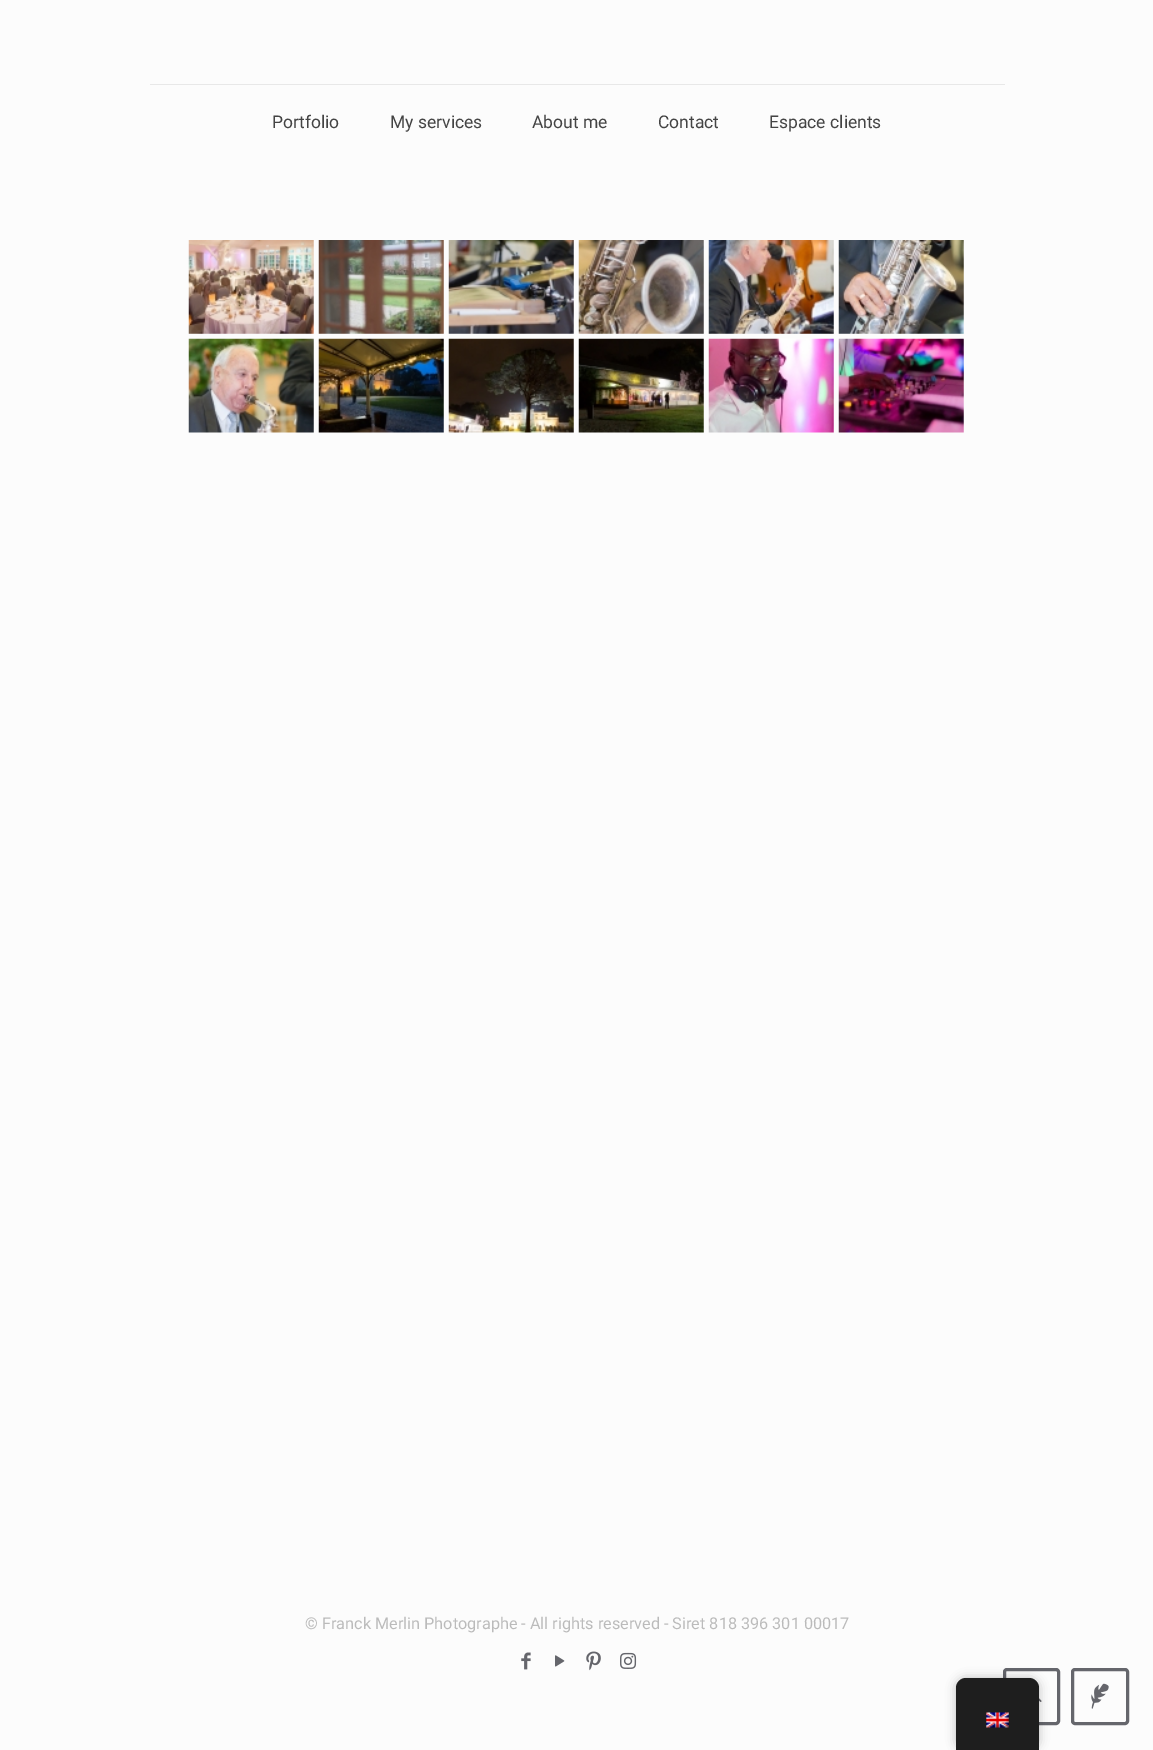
%!PS
<< /PageSize [1153 1750] /PageUsesTransparency true >> setpagedevice
/rgb { 3 { 255 div 3 1 roll } repeat setrgbcolor } def
/font { [ exch dup neg 0 0 3 -1 roll 0 0 ] selectfont } def
/text { moveto show } def
/alpha { dup .setfillconstantalpha .setstrokeconstantalpha } def
/roundrect { 5 dict begin { /r /h /w /y /x } { exch def } forall
  x r add y moveto x w add y 2 copy h add r arct x w add y h add x 1 index r arct
  x y h add x y r arct x y 2 copy exch w add exch r arct closepath end } def
/shadow { 12 dict begin { /a /b /q /h /w /y /x } { exch def } forall gsave /was 0 def
  9 -2 -9 { dup b mul 4 div /e exch def 1 sub .425 mul 2.718 exch exp 1 add a .99 .min exch div /now exch def
    1 1 now sub 1 was sub div sub alpha /was now def
    w h .min e 2 mul add 0 gt { x e sub y e sub w e 2 mul add h e 2 mul add
      q e add b .6 mul add w h .min 2 div e add .min 0 .max roundrect fill } if } for grestore end } def
/picture { 5 dict begin { /h /w /y /x /name } { exch def } forall
  gsave x y translate w h scale
  w h 8 [w 0 0 h 0 0] name (r) file false 3 colorimage grestore end } def
0 .pushpdf14devicefilter
0 1750 translate 1 -1 scale
4 setmiterlimit
252 252 252 rgb
0 0 1153 1750 rectfill
232 232 232 rgb
150 84 855 1 rectfill
(img_01.rgb) 188 240 126 94 picture
(img_02.rgb) 318 240 126 94 picture
(img_03.rgb) 448 240 126 94 picture
(img_04.rgb) 578 240 126 94 picture
(img_05.rgb) 708 240 126 94 picture
(img_06.rgb) 838 240 126 94 picture
(img_07.rgb) 188 338 126 95 picture
(img_08.rgb) 318 338 126 95 picture
(img_09.rgb) 448 338 126 95 picture
(img_10.rgb) 578 338 126 95 picture
(img_11.rgb) 708 338 126 95 picture
(img_12.rgb) 838 338 126 95 picture
(img_13.rgb) 521 1652 10 18 picture
(img_14.rgb) 555 1655 10 12 picture
(img_15.rgb) 586 1651 15 20 picture
(img_16.rgb) 620 1652 17 17 picture
101 102 108 rgb
3 setlinewidth
1004.5 1669.5 54 54 2.5 roundrect stroke
(img_18.rgb) 1039 1698 3 4 picture
0 0 0 rgb
956 1678 83 72 10 5 0.25 shadow
30 30 30 rgb
966 1678 moveto 63 0 rlineto 5.5 0 10 4.5 10 10 rcurveto 0 62 rlineto -83 0 rlineto 0 -62 rlineto 0 -5.5 4.5 -10 10 -10 rcurveto closepath fill
(img_17.rgb) 986 1712 23 16 picture
101 102 108 rgb
1072.5 1669.5 55 54 2.5 roundrect stroke
(img_19.rgb) 1091 1683 18 26 picture
/Roboto-Regular 17.5 font
68 68 68 rgb
(Portfolio) 272 128 text
(My services) 390 128 text
(About me) 532 128 text
(Contact) 658 128 text
(Espace clients) 769 128 text
/Roboto-Regular 16.25 font
187 187 187 rgb
(© Franck Merlin Photographe - All rights reserved - Siret 818 396 301 00017) 305 1629 text
.poppdf14devicefilter showpage
